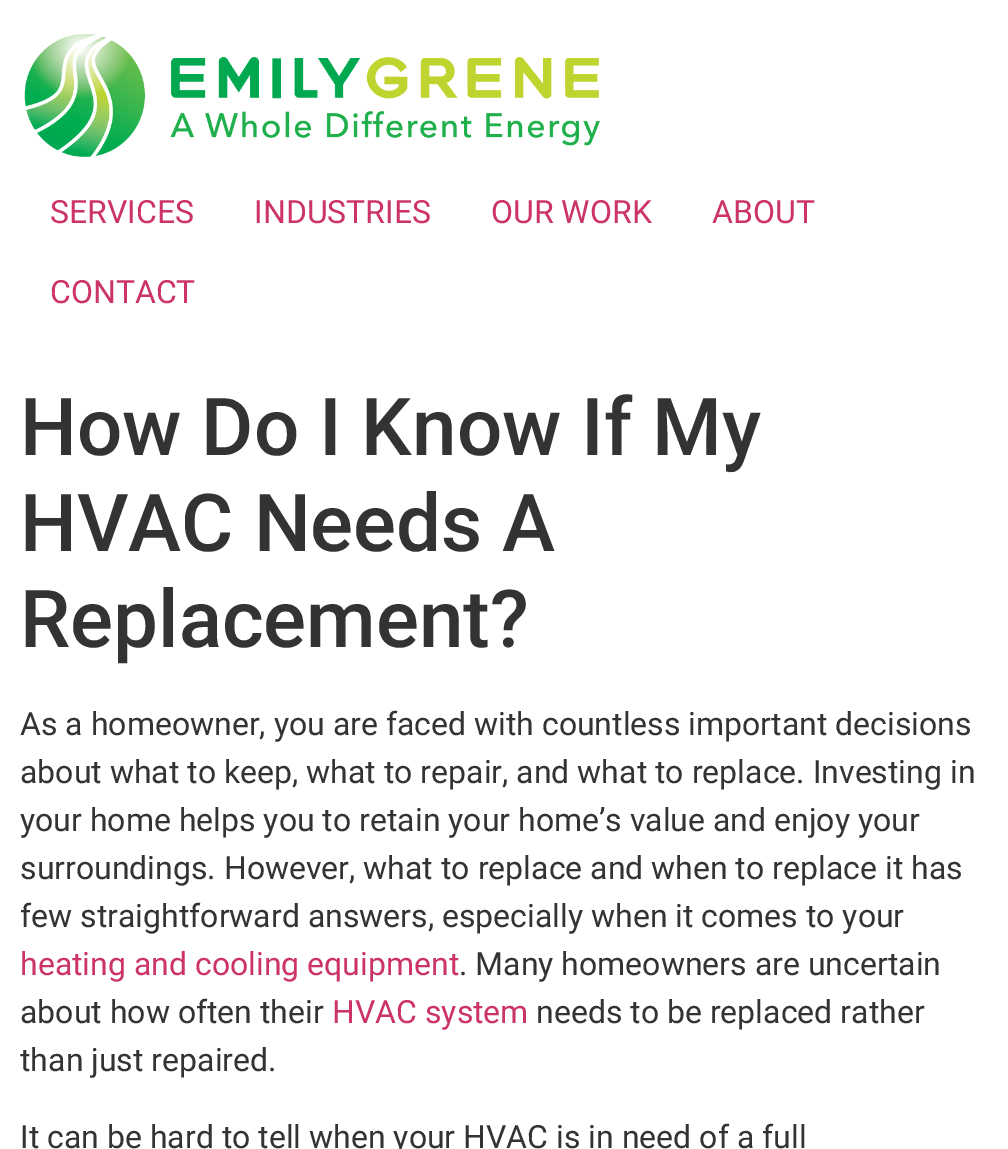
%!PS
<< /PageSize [1008 1149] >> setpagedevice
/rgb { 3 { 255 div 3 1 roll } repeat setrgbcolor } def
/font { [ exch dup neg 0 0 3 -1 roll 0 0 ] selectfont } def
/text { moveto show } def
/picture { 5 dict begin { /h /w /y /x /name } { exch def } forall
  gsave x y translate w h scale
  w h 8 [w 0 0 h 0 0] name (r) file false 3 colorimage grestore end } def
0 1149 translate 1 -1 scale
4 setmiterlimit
255 255 255 rgb
0 0 1008 1149 rectfill
(img_01.rgb) 24 34 576 123 picture
/Roboto-Regular 32 font
204 51 102 rgb
(SERVICES) 50 223 text
(INDUSTRIES) 254 223 text
(OUR WORK) 491 223 text
(ABOUT) 712 223 text
(CONTACT) 50 303 text
/Roboto-Medium 80 font
51 51 51 rgb
(How Do I Know If My) 20 455 text
(HVAC Needs A) 20 551 text
(Replacement?) 20 647 text
/Roboto-Regular 32 font
(As a homeowner, you are faced with countless important decisions) 20 735 text
(about what to keep, what to repair, and what to replace. Investing in) 20 783 text
(your home helps you to retain your home’s value and enjoy your) 20 831 text
(surroundings. However, what to replace and when to replace it has) 20 879 text
(few straightforward answers, especially when it comes to your) 20 927 text
204 51 102 rgb
(heating and cooling equipment) 20 975 text
51 51 51 rgb
(. Many homeowners are uncertain) 459 975 text
(about how often their) 20 1023 text
204 51 102 rgb
(HVAC system) 332 1023 text
51 51 51 rgb
(needs to be replaced rather) 536 1023 text
(than just repaired.) 20 1071 text
(It can be hard to tell when your HVAC is in need of a full) 20 1148 text
showpage
